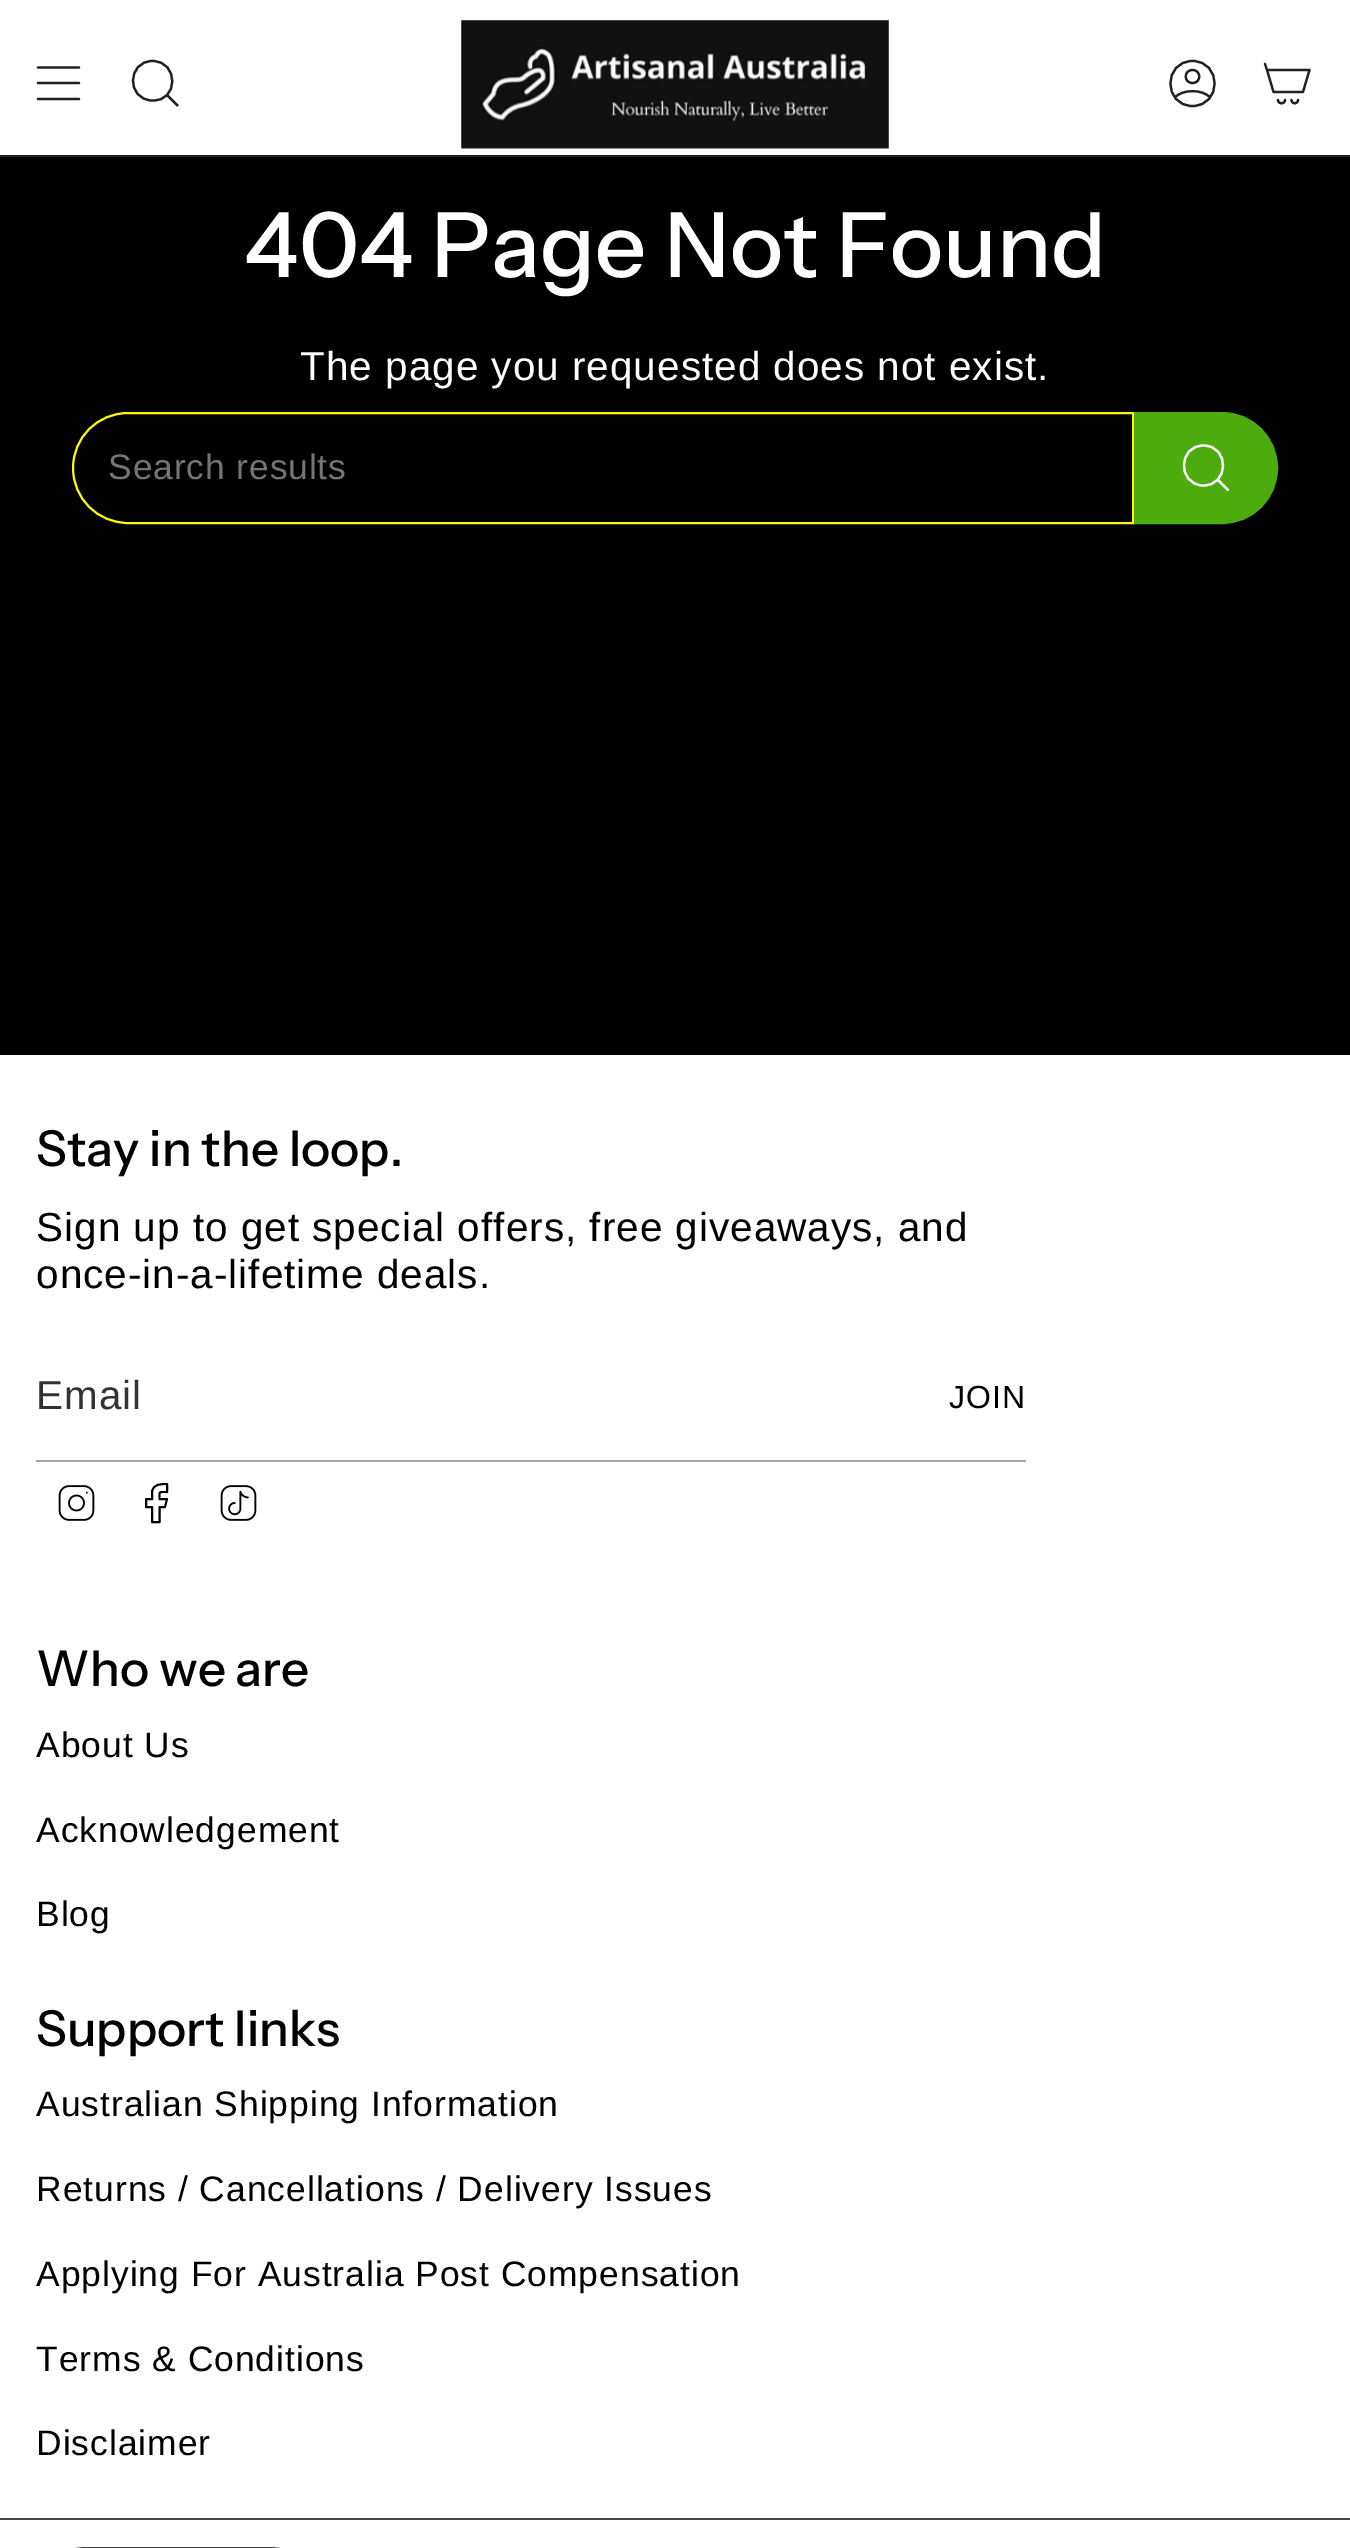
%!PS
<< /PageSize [1350 2548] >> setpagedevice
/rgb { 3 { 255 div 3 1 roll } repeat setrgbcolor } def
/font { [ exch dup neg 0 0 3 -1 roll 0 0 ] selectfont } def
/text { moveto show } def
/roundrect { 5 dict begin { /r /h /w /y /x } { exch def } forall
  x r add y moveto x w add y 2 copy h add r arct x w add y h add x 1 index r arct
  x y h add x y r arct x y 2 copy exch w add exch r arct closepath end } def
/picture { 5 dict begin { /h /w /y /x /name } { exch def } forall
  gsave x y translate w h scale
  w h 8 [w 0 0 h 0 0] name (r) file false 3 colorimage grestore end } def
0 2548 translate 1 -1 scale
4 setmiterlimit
0 0 0 rgb
0 0 1350 2548 rectfill
255 255 255 rgb
0 0 1350 155 rectfill
33 33 33 rgb
2.2 setlinewidth
1 setlinecap
1 setlinejoin
38 67.5 moveto 41 0 rlineto 38 83 moveto 41 0 rlineto 38 99 moveto 41 0 rlineto stroke
0 setlinecap
0 setlinejoin
152.5 61 moveto 26.5 0 26.5 41 -0.5 39.5 rcurveto -26 -1 -25 -39.5 0.5 -39.5 rcurveto closepath 167 95 moveto 11 11 rlineto stroke
(img_01.rgb) 461 20 428 129 picture
1 setlinecap
1 setlinejoin
1192.5 61 moveto -29.5 0 -29.5 45 0 45 rcurveto 29.5 0 29.5 -45 0 -45 rcurveto closepath 1175 97.5 moveto 7 -8.5 28 -8.5 35 0 rcurveto 1192.5 83 moveto 9 0 9 -13 0 -13 rcurveto -9 0 -9 13 0 13 rcurveto closepath stroke
1267 70 moveto 42.5 0 rlineto -6.5 22 rlineto -29.5 0 rlineto closepath 1267 70 moveto -2 -6 rlineto 1285 100 moveto 0 4.5 -7 4.5 -7 0 rcurveto 1298 100 moveto 0 4.5 -6.5 4.5 -6.5 0 rcurveto stroke
0 155 1350 2 rectfill
254 249 0 rgb
2 setlinewidth
0 setlinecap
0 setlinejoin
128 413 moveto 1005 0 rlineto 0 110 rlineto -1005 0 rlineto -30.5 0 -55 -24.5 -55 -55 rcurveto 0 -30.5 24.5 -55 55 -55 rcurveto closepath stroke
78 171 13 rgb
1135 413 moveto 87 0 rlineto 30.5 0 55 24.5 55 55 rcurveto 0 30.5 -24.5 55 -55 55 rcurveto -87 0 rlineto closepath gsave fill grestore
stroke
255 255 255 rgb
2.2 setlinewidth
1203.5 445.5 moveto 26.5 0 26 41 -1 40 rcurveto -25.5 -1.5 -24.5 -40 1 -40 rcurveto closepath 1217.5 479.5 moveto 11 11 rlineto stroke
0 1055 1350 1463 rectfill
166 166 166 rgb
36 1460 990 2 rectfill
(img_02.rgb) 58 1485 37 36 picture
0 0 0 rgb
1.9 setlinewidth
1 setlinecap
1 setlinejoin
167 1484 moveto -6.5 0 -13.5 0 -15 7.5 rcurveto 0 7.5 rlineto -6 0 rlineto 0 8 rlineto 6 0 rlineto 0 15 rlineto 7.5 0 rlineto 0 -15 rlineto 5.5 0 rlineto 2 -8 rlineto -7.5 0 rlineto 0 -8 -1 -7 7.5 -7 rcurveto closepath stroke
(img_03.rgb) 220 1485 37 36 picture
68 68 68 rgb
0 2518 1350 2 rectfill
255 255 255 rgb
0 2520 1350 28 rectfill
68 68 68 rgb
2 setlinewidth
0 setlinecap
0 setlinejoin
37 2548 282 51 49 roundrect stroke
/InstrumentSans-Medium 90 font
255 255 255 rgb
(404 Page Not Found) 244 277 text
/LiberationSans-Regular 40.5 font
300 380 moveto 1 0 (The page you requested does not exist.) ashow
/LiberationSans-Regular 35.4 font
117 117 117 rgb
108 479 moveto 0.9 0 (Search results) ashow
/InstrumentSans-Medium 49.5 font
0 0 0 rgb
(Stay in the loop.) 36 1166 text
/LiberationSans-Regular 40.5 font
36 1241 moveto 1 0 (Sign up to get special offers, free giveaways, and) ashow
36 1288 moveto 1 0 (once-in-a-lifetime deals.) ashow
51 51 51 rgb
36 1409 moveto 1 0 (Email) ashow
/LiberationSans-Regular 32 font
0 0 0 rgb
949 1408 moveto 1 0 (JOIN) ashow
/InstrumentSans-Medium 49.5 font
(Who we are) 36 1686 text
/LiberationSans-Regular 35.4 font
36 1757 moveto 1 0 (About Us) ashow
36 1842 moveto 1 0 (Acknowledgement) ashow
36 1926 moveto 1 0 (Blog) ashow
/InstrumentSans-Medium 49.5 font
(Support links) 36 2046 text
/LiberationSans-Regular 35.4 font
36 2116 moveto 1 0 (Australian Shipping Information) ashow
36 2201 moveto 1 0 (Returns / Cancellations / Delivery Issues) ashow
36 2286 moveto 1 0 (Applying For Australia Post Compensation) ashow
36 2371 moveto 1 0 (Terms & Conditions) ashow
36 2455 moveto 1 0 (Disclaimer) ashow
showpage
